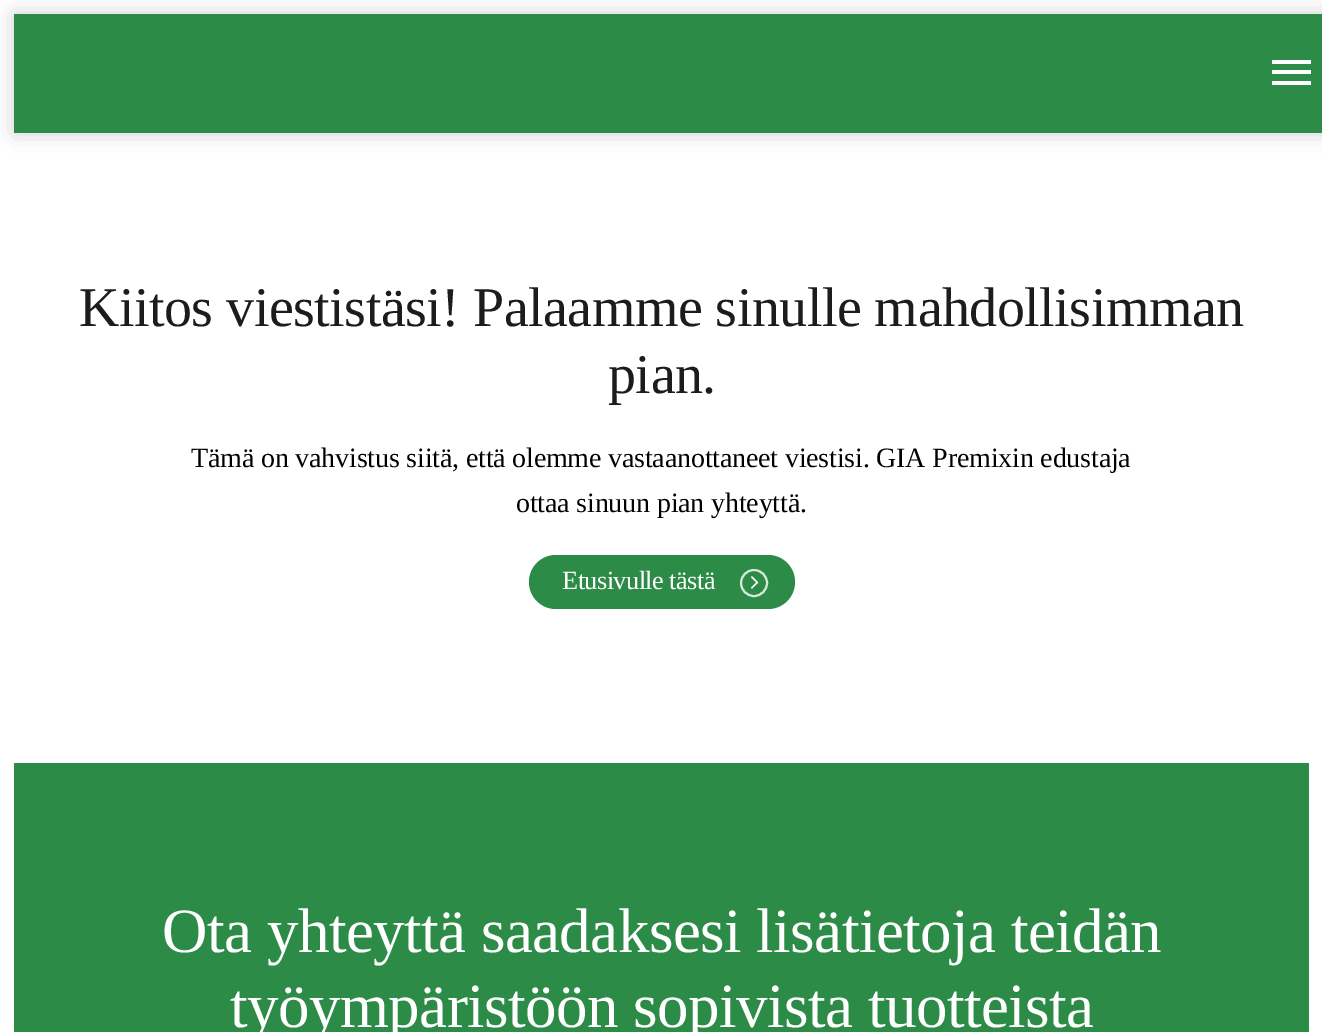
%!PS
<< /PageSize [1322 1032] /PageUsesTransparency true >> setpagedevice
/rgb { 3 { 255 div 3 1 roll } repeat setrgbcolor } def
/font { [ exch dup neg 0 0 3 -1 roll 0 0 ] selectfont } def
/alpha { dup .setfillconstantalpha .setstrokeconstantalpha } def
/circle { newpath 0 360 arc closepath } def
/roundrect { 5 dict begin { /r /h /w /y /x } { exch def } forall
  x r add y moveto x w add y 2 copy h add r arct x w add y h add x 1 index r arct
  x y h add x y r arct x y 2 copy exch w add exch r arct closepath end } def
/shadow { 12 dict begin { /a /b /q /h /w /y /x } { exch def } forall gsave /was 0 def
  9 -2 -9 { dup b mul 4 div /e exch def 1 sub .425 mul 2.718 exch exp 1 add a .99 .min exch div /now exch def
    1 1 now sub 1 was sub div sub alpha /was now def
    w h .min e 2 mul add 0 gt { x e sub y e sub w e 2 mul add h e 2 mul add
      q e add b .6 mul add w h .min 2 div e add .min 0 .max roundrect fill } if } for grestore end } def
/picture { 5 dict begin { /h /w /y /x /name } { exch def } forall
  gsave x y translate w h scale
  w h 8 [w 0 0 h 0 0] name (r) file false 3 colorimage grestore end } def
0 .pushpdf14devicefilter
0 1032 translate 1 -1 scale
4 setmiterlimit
255 255 255 rgb
0 0 1322 1032 rectfill
0 0 0 rgb
14 14 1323 119 0 10.5 0.18 shadow
44 139 71 rgb
14 14 1308 119 rectfill
255 255 255 rgb
1272 60 39 4 rectfill
1272 70 39 4 rectfill
1272 81 39 4 rectfill
44 139 71 rgb
529 555 266 54 27 roundrect fill
(img_01.rgb) 751 576 8 13 picture
213 232 218 rgb
2 setlinewidth
754 583 13 circle stroke
44 139 71 rgb
14 763 1295 269 rectfill
/LiberationSerif-Regular 56 font
28 28 28 rgb
79 326 moveto -0.53 0 (Kiitos viestistäsi! Palaamme sinulle mahdollisimman) ashow
608 393 moveto -0.53 0 (pian.) ashow
/LiberationSerif-Regular 28 font
0 0 0 rgb
191 467 moveto -0.18 0 (Tämä on vahvistus siitä, että olemme vastaanottaneet viestisi. GIA Premixin edustaja) ashow
516 512 moveto -0.18 0 (ottaa sinuun pian yhteyttä.) ashow
/LiberationSerif-Regular 26.25 font
255 255 255 rgb
562 589 moveto -0.53 0 (Etusivulle tästä) ashow
/LiberationSerif-Regular 63 font
162 952 moveto -0.53 0 (Ota yhteyttä saadaksesi lisätietoja teidän) ashow
230 1027 moveto -0.53 0 (työympäristöön sopivista tuotteista) ashow
.poppdf14devicefilter showpage
